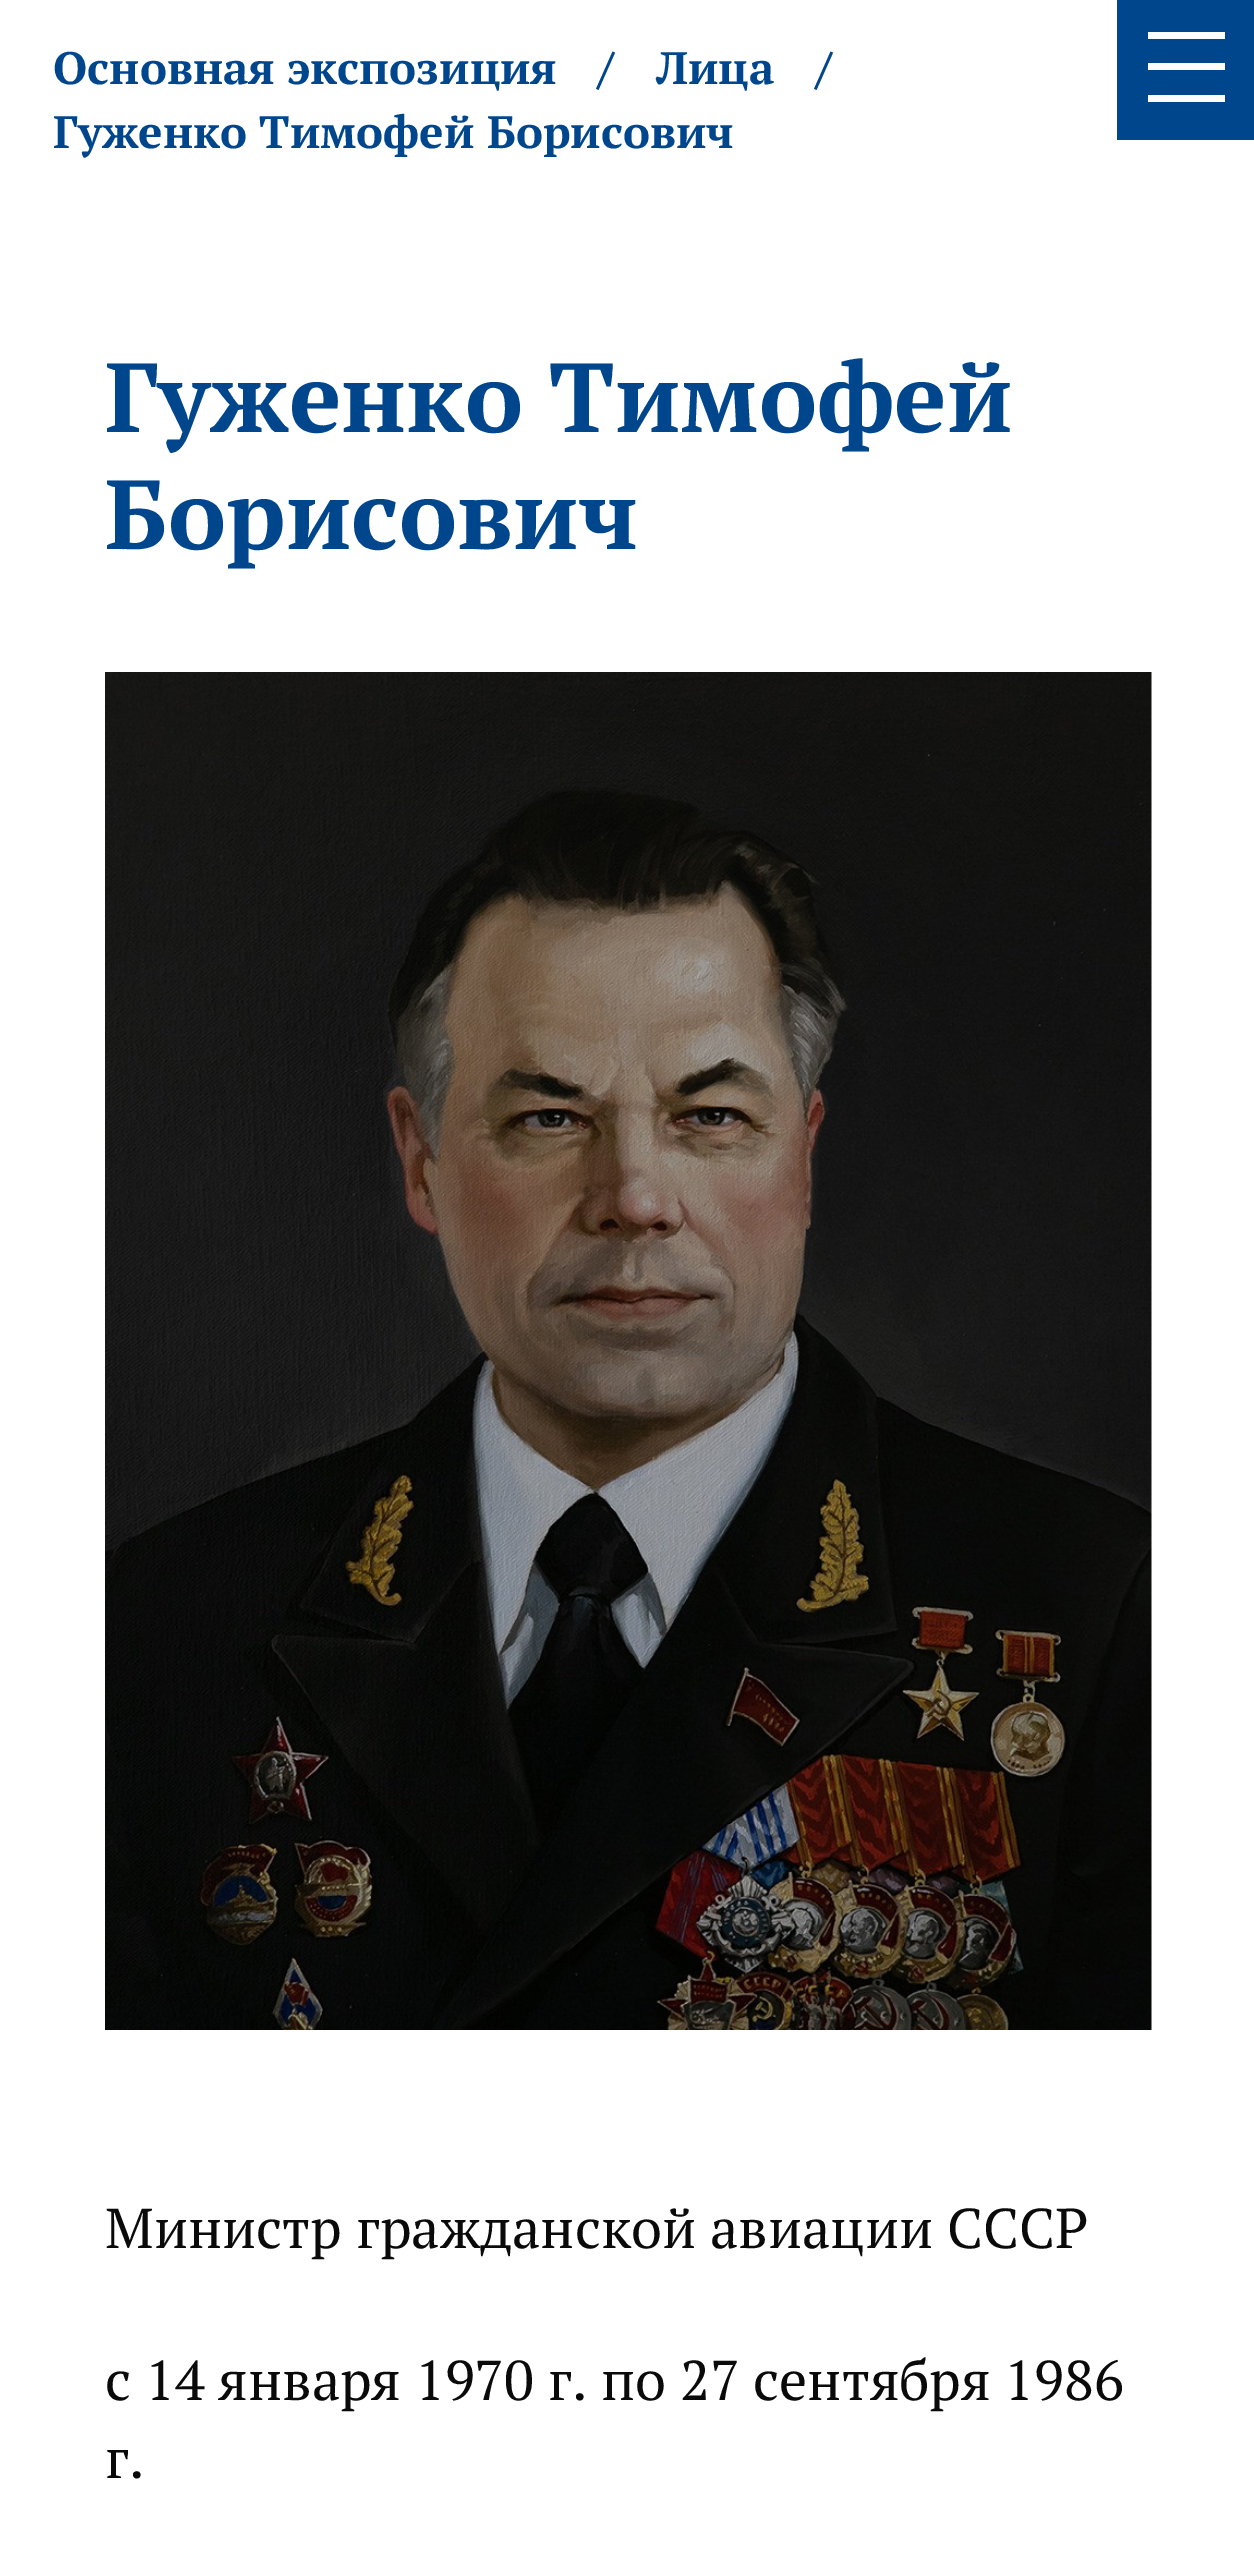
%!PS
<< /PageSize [1254 2556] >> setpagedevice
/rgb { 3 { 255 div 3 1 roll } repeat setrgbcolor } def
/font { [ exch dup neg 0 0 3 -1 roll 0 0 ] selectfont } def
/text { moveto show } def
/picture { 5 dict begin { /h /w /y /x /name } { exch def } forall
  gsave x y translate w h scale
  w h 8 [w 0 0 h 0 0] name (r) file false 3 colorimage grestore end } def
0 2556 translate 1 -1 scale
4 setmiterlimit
255 255 255 rgb
0 0 1254 2556 rectfill
(img_01.rgb) 105 672 1047 1358 picture
0 70 140 rgb
1117 0 137 140 rectfill
254 254 254 rgb
1148 63 77 7 rectfill
1148 32 77 7 rectfill
1148 95 77 7 rectfill
/PTSerif-Bold 45.5 font
0 70 140 rgb
(Основная экспозиция) 53 84 text
(/) 598 84 text
(Лица) 656 84 text
(/) 816 84 text
(Гуженко Тимофей Борисович) 53 148 text
/PTSerif-Bold 98 font
(Гуженко Тимофей) 105 432 text
(Борисович) 105 549 text
/PTSerif-Regular 56 font
10 10 10 rgb
(Министр гражданской авиации СССР) 105 2248 text
(с 14 января 1970 г. по 27 сентября 1986) 105 2400 text
(г.) 105 2478 text
showpage
